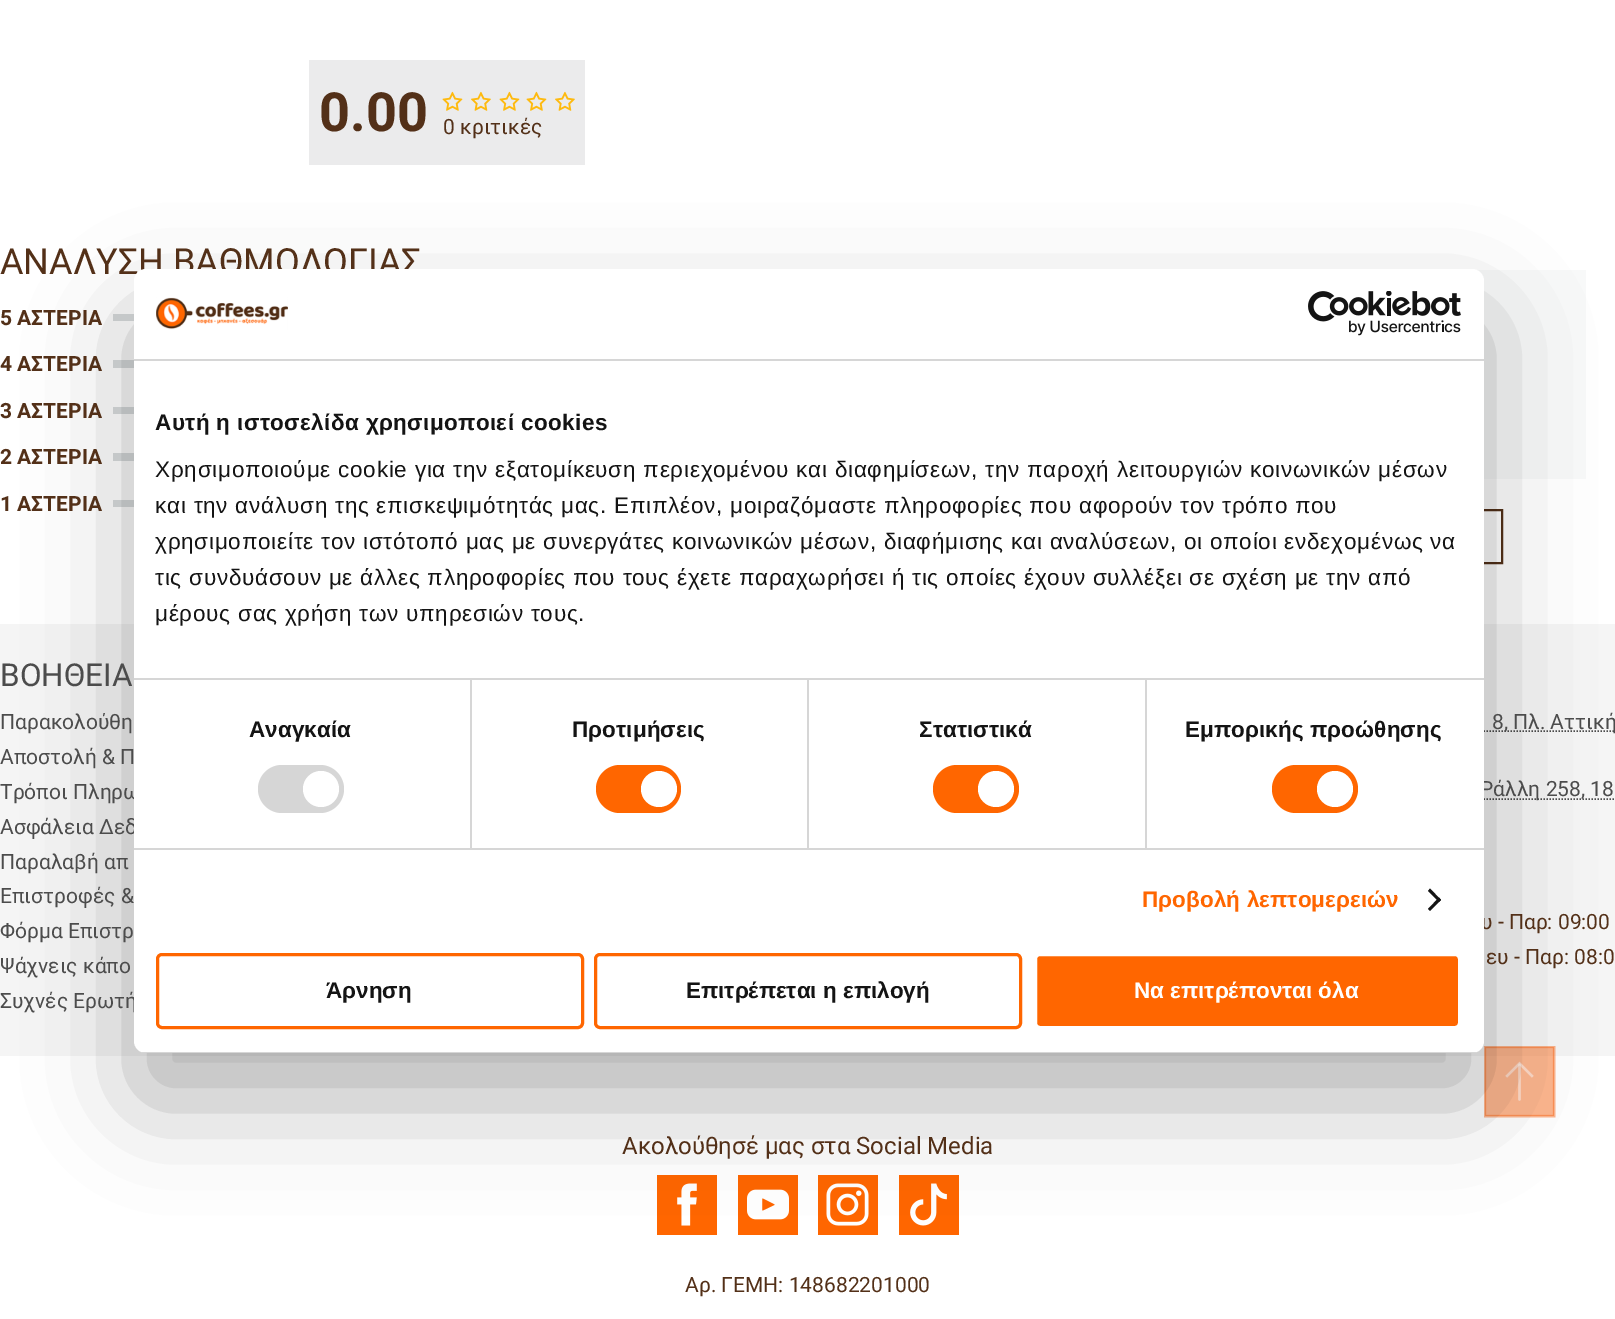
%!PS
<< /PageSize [1615 1319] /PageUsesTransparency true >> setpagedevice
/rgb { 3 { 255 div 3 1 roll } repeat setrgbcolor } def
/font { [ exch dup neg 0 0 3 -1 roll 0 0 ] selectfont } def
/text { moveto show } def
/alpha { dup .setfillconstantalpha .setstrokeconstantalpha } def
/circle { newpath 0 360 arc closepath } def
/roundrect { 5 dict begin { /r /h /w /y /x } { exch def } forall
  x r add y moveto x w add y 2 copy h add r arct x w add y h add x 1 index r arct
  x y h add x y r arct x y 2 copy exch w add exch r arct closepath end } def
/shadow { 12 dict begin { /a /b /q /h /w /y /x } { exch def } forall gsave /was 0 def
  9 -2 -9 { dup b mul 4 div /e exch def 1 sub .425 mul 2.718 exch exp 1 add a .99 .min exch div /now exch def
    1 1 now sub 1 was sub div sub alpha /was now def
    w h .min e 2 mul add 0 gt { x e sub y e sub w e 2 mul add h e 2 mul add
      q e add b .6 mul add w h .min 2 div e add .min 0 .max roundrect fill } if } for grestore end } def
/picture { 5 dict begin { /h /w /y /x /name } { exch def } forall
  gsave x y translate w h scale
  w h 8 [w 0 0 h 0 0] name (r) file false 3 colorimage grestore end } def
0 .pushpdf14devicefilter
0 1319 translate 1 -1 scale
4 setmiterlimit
255 255 255 rgb
0 0 1615 1319 rectfill
235 235 236 rgb
309 60 276 105 rectfill
(img_01.rgb) 442 91 21 20 picture
(img_02.rgb) 471 91 20 20 picture
(img_01.rgb) 499 91 21 20 picture
(img_01.rgb) 526 91 21 20 picture
(img_02.rgb) 555 91 20 20 picture
217 220 221 rgb
113 314 21 7 rectfill
113 360 21 8 rectfill
113 407 21 7 rectfill
113 453 21 8 rectfill
113 500 21 7 rectfill
248 249 249 rgb
1476 270 110 209 rectfill
83 48 24 rgb
2 setlinewidth
733 510 769 53 rectstroke
245 245 245 rgb
0 624 1615 432 rectfill
76 76 76 rgb
1.5 setlinewidth
[1.5 1.5] 0 setdash
1267.5 731 moveto 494 0 rlineto stroke
1267.5 799 moveto 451.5 0 rlineto stroke
255 102 0 rgb
657 1175 60 60 rectfill
(img_03.rgb) 677 1183 20 43 picture
738 1175 60 60 rectfill
(img_04.rgb) 747 1189 42 31 picture
818 1175 60 60 rectfill
(img_05.rgb) 826 1183 43 43 picture
899 1175 60 60 rectfill
(img_06.rgb) 910 1183 37 43 picture
(img_07.rgb) 1484 1046 72 72 picture
0 0 0 rgb
134 317 1350 784 12 51 0.3 shadow
/Roboto-Bold 54 font
83 48 24 rgb
(0.00) 319 131 text
/Roboto-Regular 21 font
(0 κριτικές) 443 134 text
/Roboto-Regular 36 font
(ΑΝΑΛΥΣΗ ΒΑΘΜΟΛΟΓΙΑΣ) 0 274 text
/Roboto-Bold 21 font
(5 ΑΣΤΕΡΙΑ) 0 325 text
(4 ΑΣΤΕΡΙΑ) 0 371 text
(3 ΑΣΤΕΡΙΑ) 0 418 text
(2 ΑΣΤΕΡΙΑ) 0 464 text
(1 ΑΣΤΕΡΙΑ) 0 511 text
/Roboto-Regular 31.5 font
76 76 76 rgb
(ΒΟΗΘΕΙΑ) 0 686 text
/Roboto-Regular 21 font
(Παρακολούθη) 0 729 text
(Αποστολή & Π) 0 764 text
(Τρόποι Πληρω) 0 799 text
(Ασφάλεια Δεδ) 0 834 text
(Παραλαβή απ) 0 869 text
(Επιστροφές &) 0 903 text
(Φόρμα Επιστρ) 0 938 text
(Ψάχνεις κάπο) 0 973 text
(Συχνές Ερωτή) 0 1008 text
(8, Πλ. Αττική) 1492 729 text
(Ράλλη 258, 18) 1480 796 text
83 48 24 rgb
(υ - Παρ: 09:00) 1481 929 text
(ευ - Παρ: 08:0) 1486 964 text
/Roboto-Regular 24 font
(Ακολούθησέ μας στα Social Media) 622 1154 text
/Roboto-Regular 21 font
(Αρ. ΓΕΜΗ: 148682201000) 685 1292 text
255 255 255 rgb
134 269 1350 784 12 roundrect fill
214 214 214 rgb
134 359 1350 2 rectfill
(img_08.rgb) 156 297 132 33 picture
(img_09.rgb) 1308 291 153 45 picture
134 678 1350 2 rectfill
/LiberationSans-Bold 22.5 font
20 20 20 rgb
155 430 moveto 0.4 0 (Αυτή η ιστοσελίδα χρησιμοποιεί cookies) ashow
/LiberationSans-Regular 22.5 font
155 477 moveto 0.75 0 (Χρησιμοποιούμε cookie για την εξατομίκευση περιεχομένου και διαφημίσεων, την παροχή λειτουργιών κοινωνικών μέσων) ashow
155 513 moveto 0.75 0 (και την ανάλυση της επισκεψιμότητάς μας. Επιπλέον, μοιραζόμαστε πληροφορίες που αφορούν τον τρόπο που) ashow
155 549 moveto 0.75 0 (χρησιμοποιείτε τον ιστότοπό μας με συνεργάτες κοινωνικών μέσων, διαφήμισης και αναλύσεων, οι οποίοι ενδεχομένως να) ashow
155 585 moveto 0.75 0 (τις συνδυάσουν με άλλες πληροφορίες που τους έχετε παραχωρήσει ή τις οποίες έχουν συλλέξει σε σχέση με την από) ashow
155 621 moveto 0.75 0 (μέρους σας χρήση των υπηρεσιών τους.) ashow
214 214 214 rgb
134 848 1350 2 rectfill
470 680 2 168 rectfill
/LiberationSans-Bold 22.5 font
20 20 20 rgb
249 737 moveto 0.1 0 (Αναγκαία) ashow
214 214 214 rgb
258 765 86 48 24 roundrect fill
255 255 255 rgb
321 789 18 circle fill
214 214 214 rgb
807 680 2 168 rectfill
20 20 20 rgb
572 737 moveto 0.1 0 (Προτιμήσεις) ashow
255 102 0 rgb
596 765 85 48 24 roundrect fill
255 255 255 rgb
659 789 18 circle fill
214 214 214 rgb
1145 680 2 168 rectfill
20 20 20 rgb
919 737 moveto 0.1 0 (Στατιστικά) ashow
255 102 0 rgb
933 765 86 48 24 roundrect fill
255 255 255 rgb
996 789 18 circle fill
20 20 20 rgb
1185 737 moveto 0.1 0 (Εμπορικής προώθησης) ashow
255 102 0 rgb
1272 765 86 48 24 roundrect fill
255 255 255 rgb
1335 789 18 circle fill
255 102 0 rgb
1142 907 moveto 0.1 0 (Προβολή λεπτομερειών) ashow
20 20 20 rgb
1430 888.5 moveto 11 11.5 rlineto -2 2 rlineto -11 -11 rlineto closepath fill
1439 897.5 moveto 2 2.5 rlineto -11 11 rlineto -2 -2 rlineto closepath fill
gsave
134 269 1350 784 12 roundrect clip newpath
214 214 214 rgb
134 1052 1350 1 rectfill
grestore
255 102 0 rgb
3 setlinewidth
[] 0 setdash
157.5 954.5 425 73 4.5 roundrect stroke
20 20 20 rgb
(Άρνηση) 326 998 text
255 102 0 rgb
595.5 954.5 425 73 4.5 roundrect stroke
20 20 20 rgb
(Επιτρέπεται η επιλογή) 686 998 text
255 102 0 rgb
1035.5 954.5 424 73 4.5 roundrect gsave fill grestore
255 255 255 rgb
stroke
(Να επιτρέπονται όλα) 1134 998 text
.poppdf14devicefilter showpage
